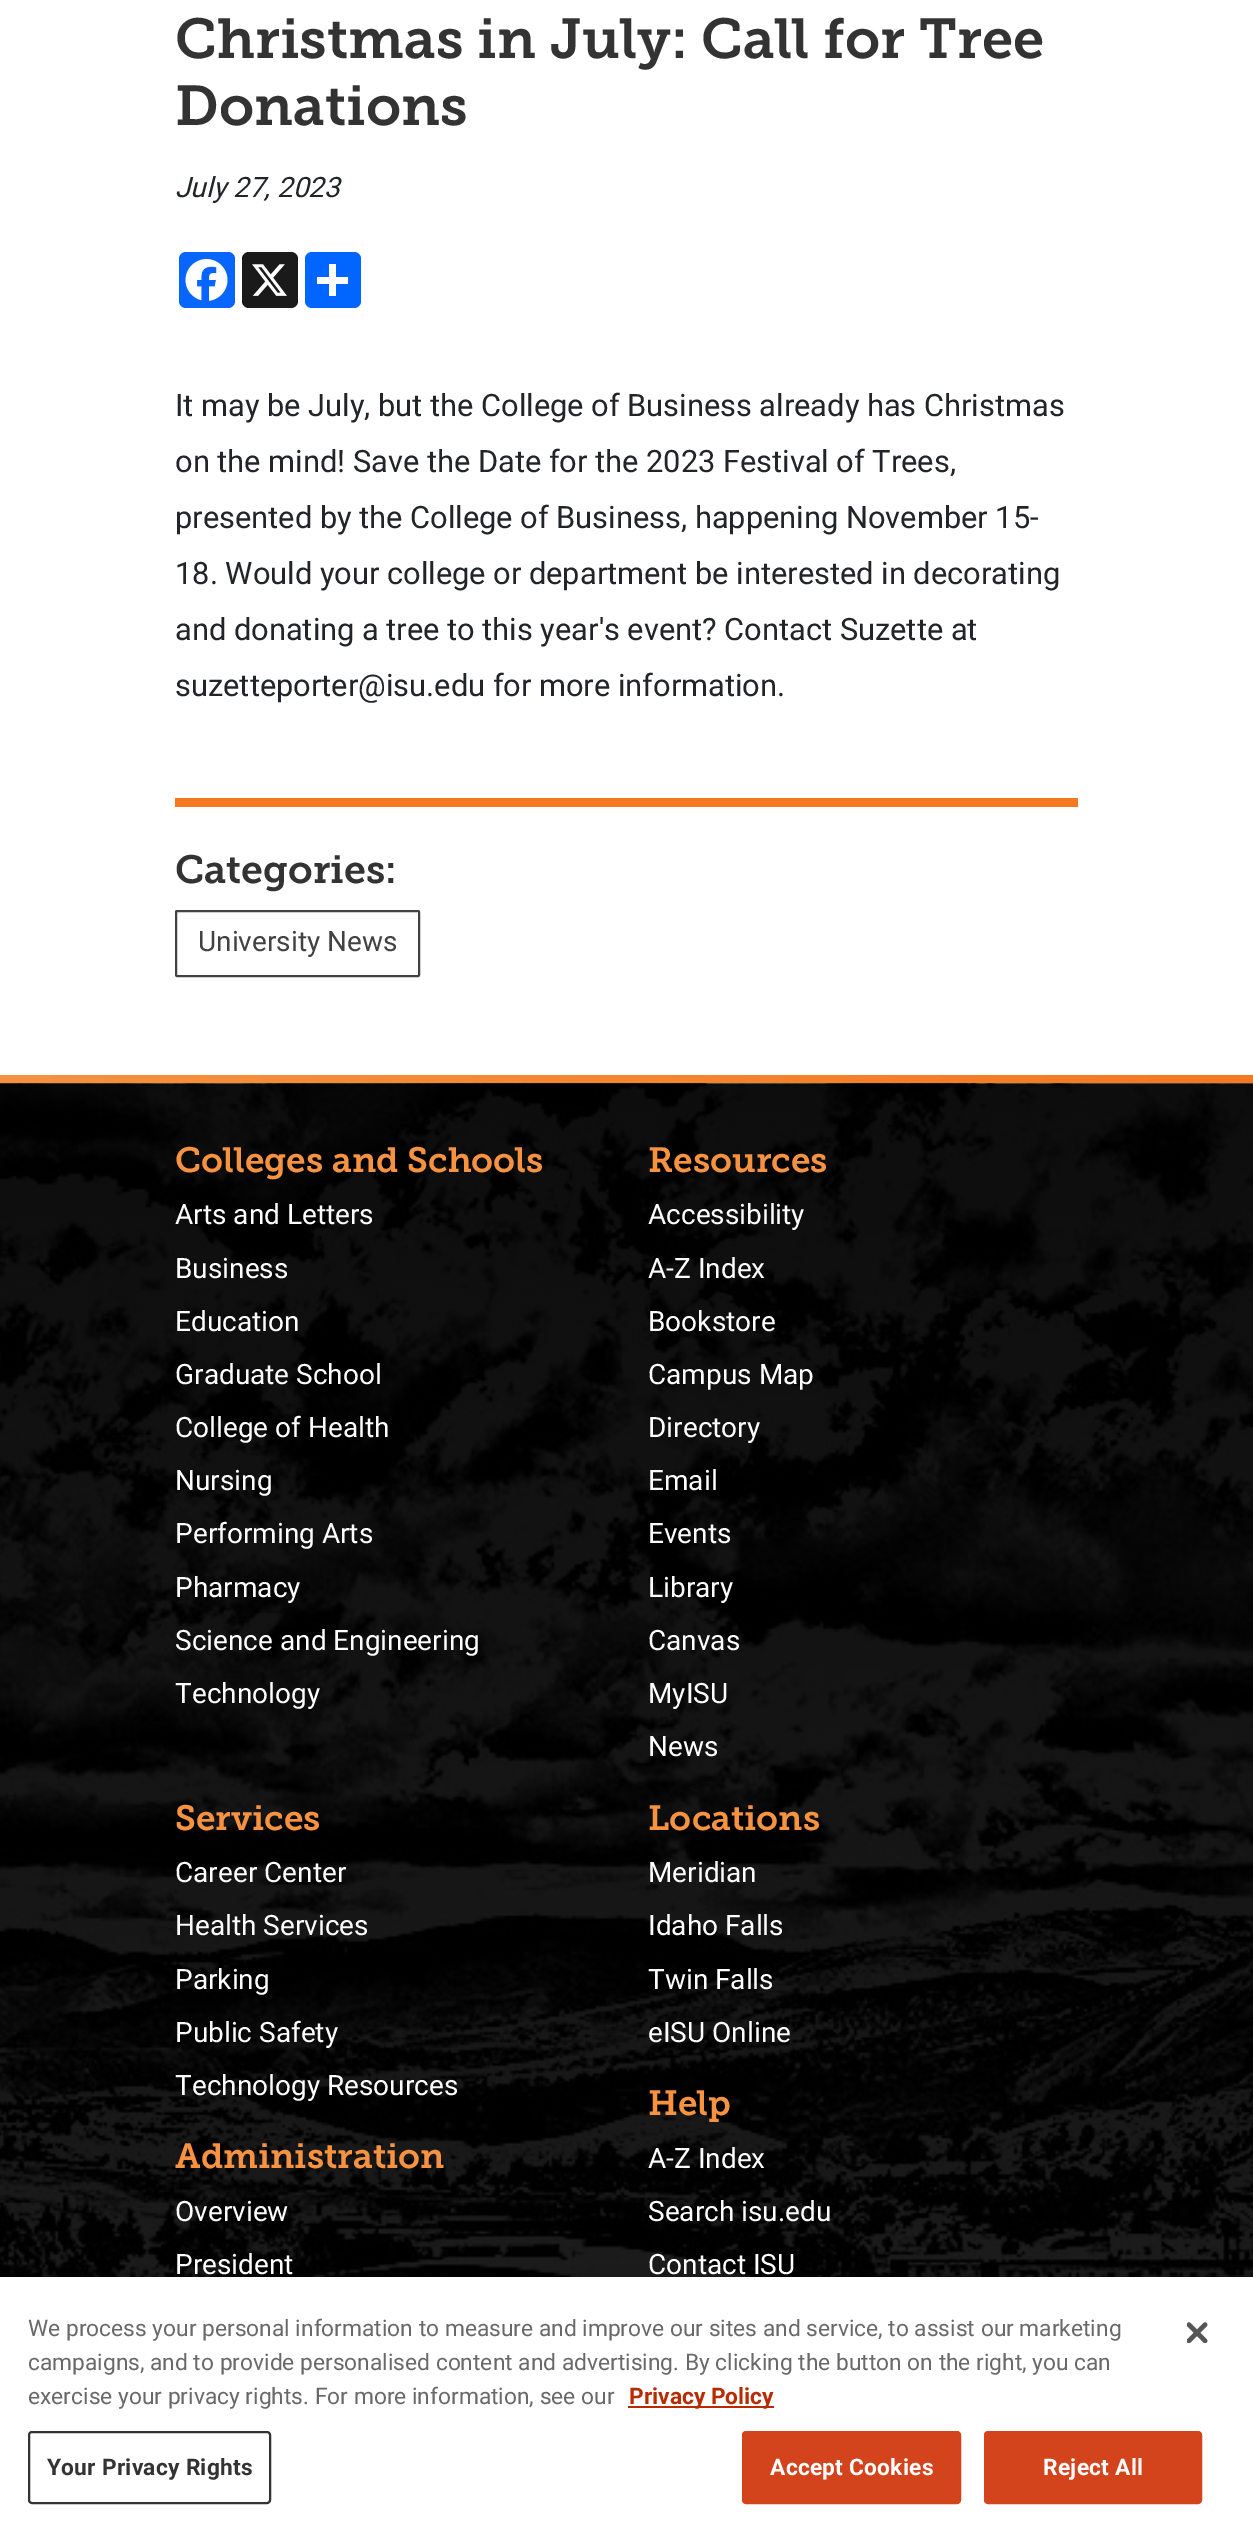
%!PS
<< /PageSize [1253 2538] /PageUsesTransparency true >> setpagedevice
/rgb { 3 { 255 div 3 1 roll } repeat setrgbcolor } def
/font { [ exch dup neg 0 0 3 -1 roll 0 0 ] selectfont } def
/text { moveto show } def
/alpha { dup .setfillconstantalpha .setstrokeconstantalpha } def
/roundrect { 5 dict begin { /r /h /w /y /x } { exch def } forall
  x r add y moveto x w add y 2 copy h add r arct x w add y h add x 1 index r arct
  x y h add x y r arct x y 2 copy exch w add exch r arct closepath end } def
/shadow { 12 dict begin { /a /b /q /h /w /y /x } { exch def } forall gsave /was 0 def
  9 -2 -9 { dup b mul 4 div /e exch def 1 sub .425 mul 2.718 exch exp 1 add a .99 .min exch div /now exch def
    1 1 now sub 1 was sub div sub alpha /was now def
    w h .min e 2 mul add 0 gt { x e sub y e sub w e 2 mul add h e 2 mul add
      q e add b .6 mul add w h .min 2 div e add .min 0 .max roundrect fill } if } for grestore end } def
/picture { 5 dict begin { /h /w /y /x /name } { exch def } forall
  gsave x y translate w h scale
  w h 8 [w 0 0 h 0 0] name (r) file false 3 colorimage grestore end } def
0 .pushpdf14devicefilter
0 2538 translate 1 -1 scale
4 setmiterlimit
255 255 255 rgb
0 0 1253 2538 rectfill
8 102 255 rgb
179 252 56 56 7 roundrect fill
(img_01.rgb) 185 259 43 42 picture
26 26 26 rgb
242 252 56 56 7 roundrect fill
(img_02.rgb) 252 264 35 32 picture
1 102 255 rgb
305 252 56 56 7 roundrect fill
255 255 255 rgb
329 264 7 32 rectfill
317 277 31 7 rectfill
244 121 32 rgb
175 798 903 9 rectfill
66 66 66 rgb
2 setlinewidth
176 911 243 65 1 roundrect stroke
gsave 0 1075 moveto 1253 0 rlineto 0 8 rlineto -1253 0 rlineto closepath clip newpath
<< /ShadingType 2 /ColorSpace /DeviceRGB /Coords [0 1079 1253 1079] /Extend [true true] /Function << /FunctionType 2 /Domain [0 1] /C0 [0.965 0.573 0.251] /C1 [0.957 0.475 0.125] /N 1 >> >> shfill grestore
(img_03.rgb) 0 1083 1253 1194 picture
0 0 0 rgb
0 2277 1253 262 0 16 0.2 shadow
255 255 255 rgb
0 2277 1253 261 rectfill
184 43 0 rgb
628 2406 146 2 rectfill
51 51 51 rgb
29 2432 241 71 3 roundrect stroke
212 68 28 rgb
743 2432 217 71 3 roundrect gsave fill grestore
stroke
985 2432 216 71 3 roundrect gsave fill grestore
stroke
(img_04.rgb) 1187 2322 21 21 picture
/MuseoSlab-SemiBold 56 font
51 51 51 rgb
(Christmas in July: Call for Tree) 175 58 text
(Donations) 175 125 text
/Roboto-Italic 28 font
33 37 41 rgb
(July 27, 2023) 175 197 text
/Roboto-Regular 30.8 font
(It may be July, but the College of Business already has Christmas) 175 416 text
(on the mind! Save the Date for the 2023 Festival of Trees,) 175 472 text
(presented by the College of Business, happening November 15-) 175 528 text
(18. Would your college or department be interested in decorating) 175 584 text
(and donating a tree to this year's event? Contact Suzette at) 175 640 text
(suzetteporter@isu.edu for more information.) 175 696 text
/MuseoSlab-SemiBold 39.25 font
51 51 51 rgb
(Categories:) 175 883 text
/Roboto-Regular 28 font
66 66 66 rgb
(University News) 198 951 text
/MuseoSlab-SemiBold 35 font
246 146 64 rgb
(Colleges and Schools) 175 1172 text
/Roboto-Regular 28 font
255 255 255 rgb
(Arts and Letters) 175 1224 text
(Business) 175 1278 text
(Education) 175 1331 text
(Graduate School) 175 1384 text
(College of Health) 175 1437 text
(Nursing) 175 1490 text
(Performing Arts) 175 1543 text
(Pharmacy) 175 1597 text
(Science and Engineering) 175 1650 text
(Technology) 175 1703 text
/MuseoSlab-SemiBold 35 font
246 146 64 rgb
(Resources) 648 1172 text
/Roboto-Regular 28 font
255 255 255 rgb
(Accessibility) 648 1224 text
(A-Z Index) 648 1278 text
(Bookstore) 648 1331 text
(Campus Map) 648 1384 text
(Directory) 648 1437 text
(Email) 648 1490 text
(Events) 648 1543 text
(Library) 648 1597 text
(Canvas) 648 1650 text
(MyISU) 648 1703 text
(News) 648 1756 text
/MuseoSlab-SemiBold 35 font
246 146 64 rgb
(Services) 175 1830 text
/Roboto-Regular 28 font
255 255 255 rgb
(Career Center) 175 1882 text
(Health Services) 175 1935 text
(Parking) 175 1989 text
(Public Safety) 175 2042 text
(Technology Resources) 175 2095 text
/MuseoSlab-SemiBold 35 font
246 146 64 rgb
(Administration) 175 2168 text
/Roboto-Regular 28 font
255 255 255 rgb
(Overview) 175 2221 text
(President) 175 2274 text
/MuseoSlab-SemiBold 35 font
246 146 64 rgb
(Locations) 648 1830 text
/Roboto-Regular 28 font
255 255 255 rgb
(Meridian) 648 1882 text
(Idaho Falls) 648 1935 text
(Twin Falls) 648 1989 text
(eISU Online) 648 2042 text
/MuseoSlab-SemiBold 35 font
246 146 64 rgb
(Help) 648 2115 text
/Roboto-Regular 28 font
255 255 255 rgb
(A-Z Index) 648 2168 text
(Search isu.edu) 648 2221 text
(Contact ISU) 648 2274 text
/Roboto-Regular 22.75 font
105 105 105 rgb
(We process your personal information to measure and improve our sites and service, to assist our marketing) 28 2336 text
(campaigns, and to provide personalised content and advertising. By clicking the button on the right, you can) 28 2370 text
(exercise your privacy rights. For more information, see our) 28 2404 text
/Roboto-Bold 22.75 font
184 43 0 rgb
(Privacy Policy) 629 2404 text
51 51 51 rgb
47 2475 moveto 0.25 0 (Your Privacy Rights) ashow
255 255 255 rgb
770 2475 moveto 0.25 0 (Accept Cookies) ashow
1043 2475 moveto 0.25 0 (Reject All) ashow
.poppdf14devicefilter showpage
